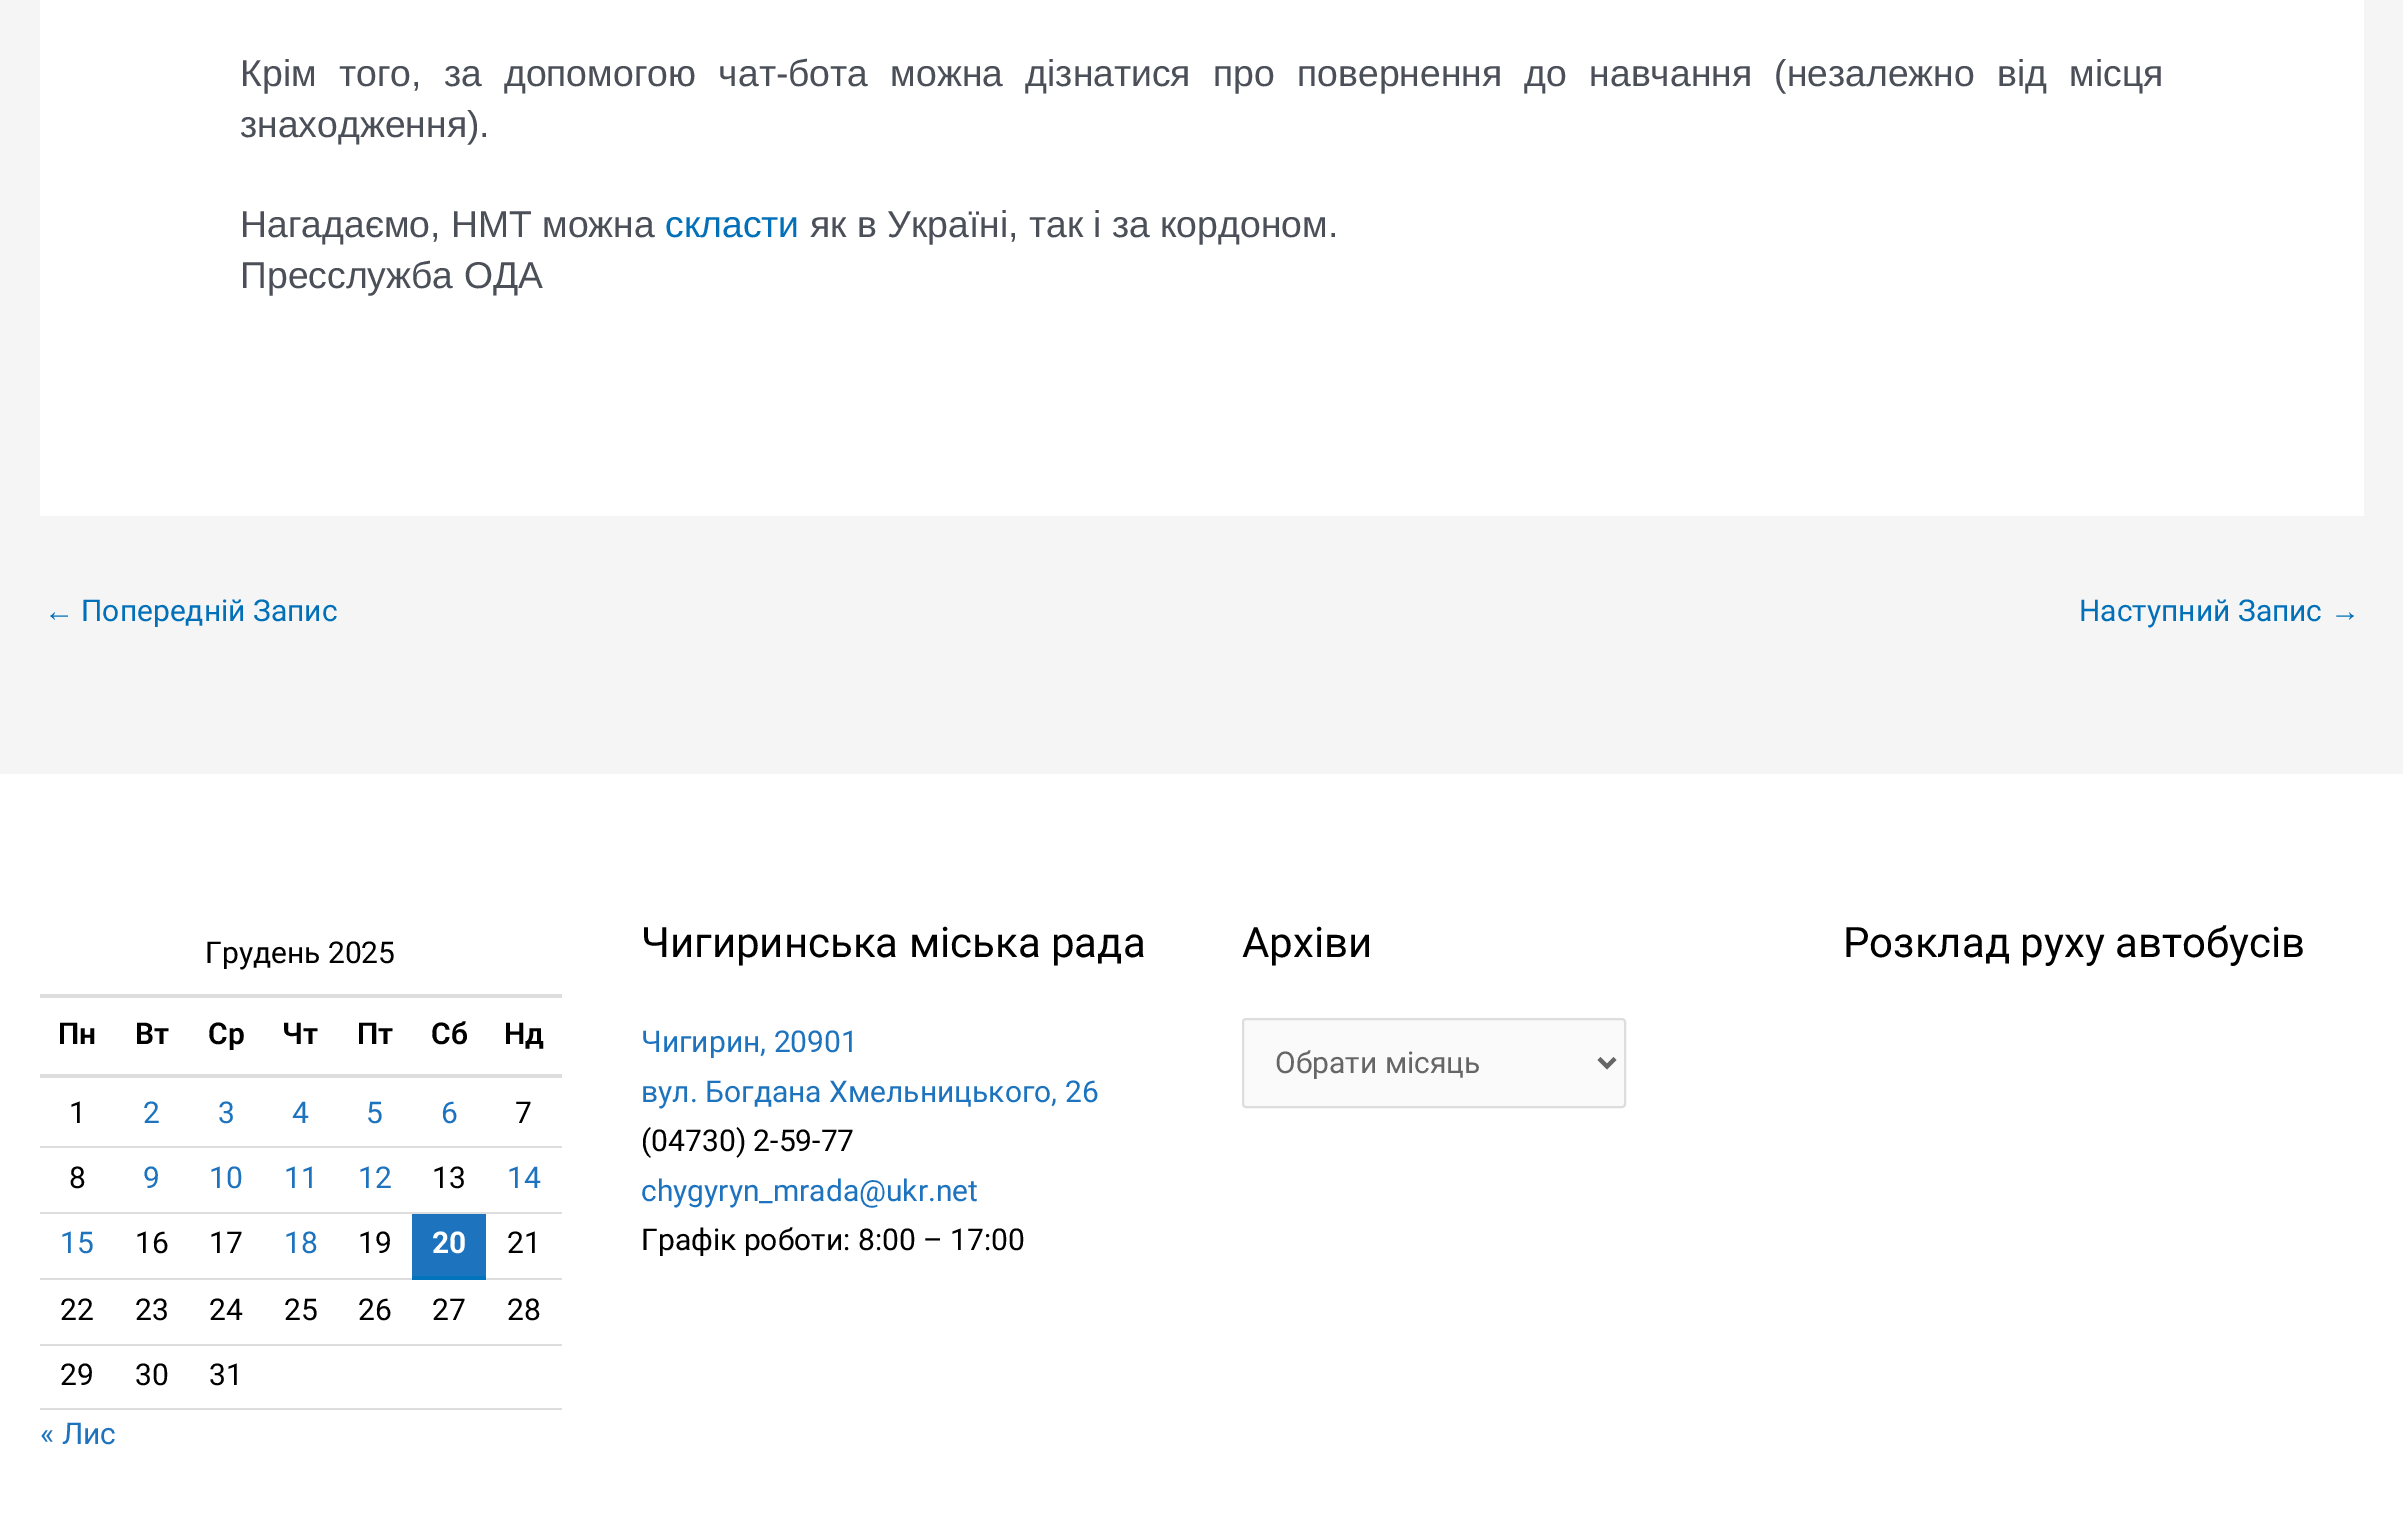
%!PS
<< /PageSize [2403 1540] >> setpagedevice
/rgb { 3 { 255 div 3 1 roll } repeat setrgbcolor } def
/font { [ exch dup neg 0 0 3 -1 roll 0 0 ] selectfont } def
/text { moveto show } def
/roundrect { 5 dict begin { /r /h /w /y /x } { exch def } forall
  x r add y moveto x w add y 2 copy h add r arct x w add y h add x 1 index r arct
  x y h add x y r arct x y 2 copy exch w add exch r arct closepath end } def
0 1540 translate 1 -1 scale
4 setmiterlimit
245 245 245 rgb
0 0 2403 1540 rectfill
255 255 255 rgb
40 0 2324 516 rectfill
0 774 2403 766 rectfill
221 221 221 rgb
40 994 522 4 rectfill
40 1074 522 4 rectfill
40 1146 522 2 rectfill
40 1212 522 2 rectfill
40 1278 372 2 rectfill
30 115 190 rgb
412 1214 74 62 rectfill
2 116 190 rgb
412 1276 74 4 rectfill
221 221 221 rgb
486 1278 76 2 rectfill
40 1344 522 2 rectfill
40 1408 522 2 rectfill
250 250 250 rgb
1243 1019 382 88 3 roundrect gsave fill grestore
221 221 221 rgb
2 setlinewidth
stroke
102 102 102 rgb
4 setlinewidth
1599 1058.5 moveto 8 8 rlineto 8 -8 rlineto stroke
/LiberationSans-Regular 37.33 font
75 79 88 rgb
240 86 moveto 11.9 0 32 (Крім того, за допомогою чат-бота можна дізнатися про повернення до навчання \(незалежно від місця) widthshow
(знаходження\).) 240 137 text
(Нагадаємо, НМТ можна) 240 237 text
1 112 185 rgb
(скласти) 665 237 text
75 79 88 rgb
(як в Україні, так і за кордоном.) 810 237 text
(Пресслужба ОДА) 240 288 text
/LiberationSans-Regular 30 font
1 112 185 rgb
(←) 44 621 text
/Roboto-Regular 30 font
(Попередній Запис) 81 621 text
(Наступний Запис) 2079 621 text
/LiberationSans-Regular 30 font
(→) 2330 621 text
/Roboto-Regular 30 font
0 0 0 rgb
(Грудень 2025) 205 963 text
/Roboto-SemiBold 30 font
(Пн) 58 1044 text
(Вт) 135 1044 text
(Ср) 208 1044 text
(Чт) 282 1044 text
(Пт) 357 1044 text
(Сб) 431 1044 text
(Нд) 504 1044 text
/Roboto-Regular 30 font
(1) 69 1123 text
30 115 190 rgb
(2) 143 1123 text
(3) 218 1123 text
(4) 292 1123 text
(5) 366 1123 text
(6) 441 1123 text
0 0 0 rgb
(7) 515 1123 text
(8) 69 1188 text
30 115 190 rgb
(9) 143 1188 text
(10) 209 1188 text
(11) 284 1188 text
(12) 358 1188 text
0 0 0 rgb
(13) 432 1188 text
30 115 190 rgb
(14) 507 1188 text
(15) 60 1253 text
0 0 0 rgb
(16) 135 1253 text
(17) 209 1253 text
30 115 190 rgb
(18) 284 1253 text
0 0 0 rgb
(19) 358 1253 text
/Roboto-Bold 30 font
255 255 255 rgb
(20) 432 1253 text
/Roboto-Regular 30 font
0 0 0 rgb
(21) 507 1253 text
(22) 60 1320 text
(23) 135 1320 text
(24) 209 1320 text
(25) 284 1320 text
(26) 358 1320 text
(27) 432 1320 text
(28) 507 1320 text
(29) 60 1385 text
(30) 135 1385 text
(31) 209 1385 text
30 115 190 rgb
(« Лис) 40 1444 text
/Roboto-Regular 42 font
0 0 0 rgb
(Чигиринська міська рада) 641 957 text
/Roboto-Regular 30 font
30 115 190 rgb
(Чигирин, 20901) 641 1052 text
(вул. Богдана Хмельницького, 26) 641 1102 text
0 0 0 rgb
(\(04730\) 2-59-77) 641 1151 text
30 115 190 rgb
(chygyryn_mrada@ukr.net) 641 1201 text
0 0 0 rgb
(Графік роботи: 8:00 – 17:00) 641 1250 text
/Roboto-Regular 42 font
(Архіви) 1242 957 text
/Roboto-Regular 30 font
102 102 102 rgb
(Обрати місяць) 1275 1073 text
/Roboto-Regular 42 font
0 0 0 rgb
(Розклад руху автобусів) 1843 957 text
showpage
